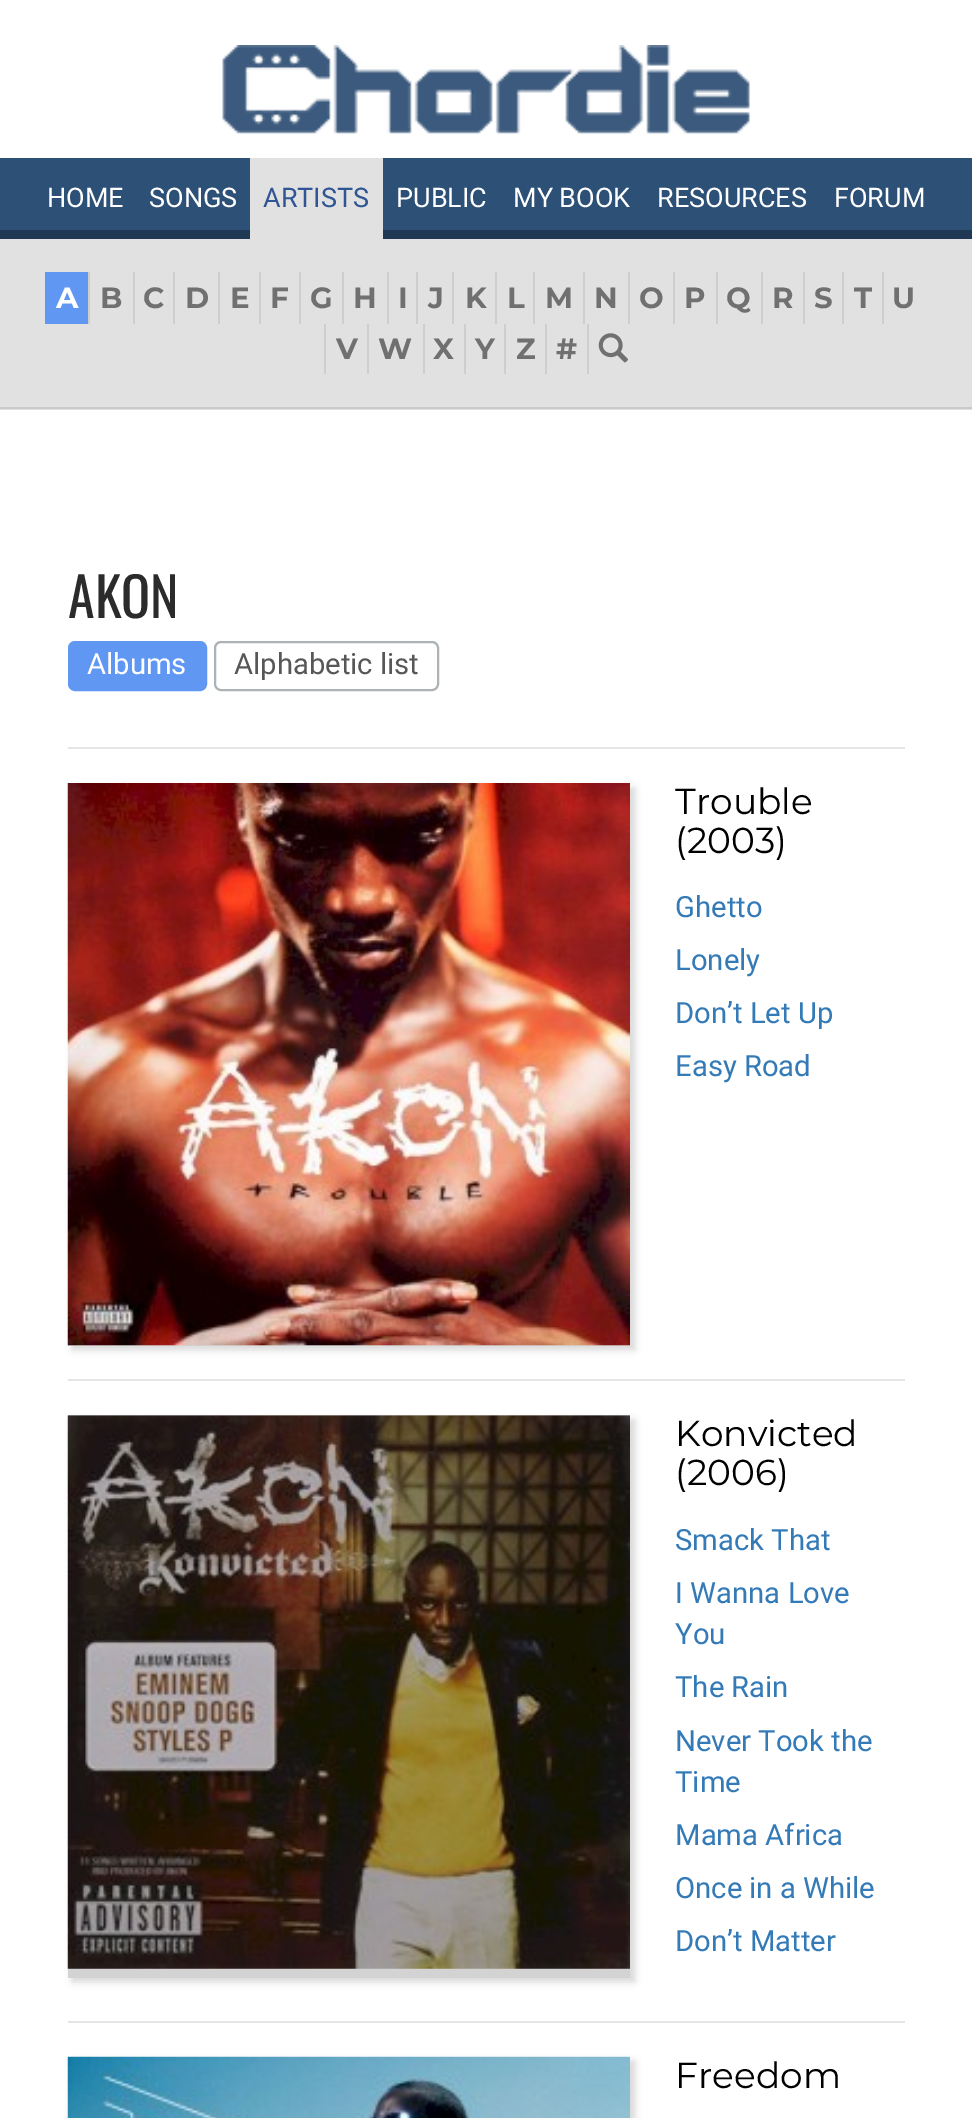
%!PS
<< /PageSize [972 2118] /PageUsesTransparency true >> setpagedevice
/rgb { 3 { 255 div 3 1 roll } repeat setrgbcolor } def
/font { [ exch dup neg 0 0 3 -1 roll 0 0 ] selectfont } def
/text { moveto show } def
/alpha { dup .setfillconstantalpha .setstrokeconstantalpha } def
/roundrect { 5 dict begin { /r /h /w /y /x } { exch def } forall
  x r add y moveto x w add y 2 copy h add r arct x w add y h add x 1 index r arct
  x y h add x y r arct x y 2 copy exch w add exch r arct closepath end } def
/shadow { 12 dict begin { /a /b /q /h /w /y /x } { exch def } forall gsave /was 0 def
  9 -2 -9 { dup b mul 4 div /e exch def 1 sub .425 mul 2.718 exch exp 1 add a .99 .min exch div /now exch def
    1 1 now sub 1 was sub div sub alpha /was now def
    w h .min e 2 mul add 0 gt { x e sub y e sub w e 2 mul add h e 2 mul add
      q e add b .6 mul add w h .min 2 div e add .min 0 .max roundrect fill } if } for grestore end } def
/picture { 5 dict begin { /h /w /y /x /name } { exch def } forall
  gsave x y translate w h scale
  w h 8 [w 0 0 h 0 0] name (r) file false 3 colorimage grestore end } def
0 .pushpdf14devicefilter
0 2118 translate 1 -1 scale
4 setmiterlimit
255 255 255 rgb
0 0 972 2118 rectfill
(img_01.rgb) 222 45 528 89 picture
45 80 119 rgb
0 158 972 72 rectfill
31 56 83 rgb
0 230 972 9 rectfill
225 225 225 rgb
250 158 133 81 rectfill
0 239 972 171 rectfill
202 202 202 rgb
0 407 972 2 rectfill
96 151 243 rgb
45 272 43 52 rectfill
206 206 206 rgb
88 272 2 52 rectfill
133 272 2 52 rectfill
173 272 2 52 rectfill
218 272 2 52 rectfill
259 272 2 52 rectfill
299 272 2 52 rectfill
342 272 2 52 rectfill
387 272 2 52 rectfill
416 272 2 52 rectfill
452 272 2 52 rectfill
495 272 2 52 rectfill
533 272 2 52 rectfill
583 272 2 52 rectfill
628 272 2 52 rectfill
673 272 2 52 rectfill
716 272 2 52 rectfill
761 272 2 52 rectfill
803 272 2 52 rectfill
842 272 2 52 rectfill
882 272 2 52 rectfill
324 324 2 50 rectfill
367 324 2 50 rectfill
423 324 2 50 rectfill
464 324 2 50 rectfill
504 324 2 50 rectfill
545 324 2 50 rectfill
587 324 2 50 rectfill
(img_02.rgb) 598 333 30 30 picture
229 229 229 rgb
68 747 837 2 rectfill
96 151 243 rgb
69 642 137 48 6 roundrect gsave fill grestore
2 setlinewidth
stroke
173 178 182 rgb
215 642 223 48 6 roundrect stroke
229 229 229 rgb
68 1379 837 2 rectfill
0 0 0 rgb
72 788 563 562 0 3.5 0.15 shadow
211 211 211 rgb
68 1345 562 1 rectfill
(img_03.rgb) 67 783 563 563 picture
229 229 229 rgb
68 2021 837 2 rectfill
0 0 0 rgb
72 1420 563 562 0 3.5 0.15 shadow
211 211 211 rgb
68 1415 562 563 rectfill
(img_04.rgb) 67 1415 563 554 picture
0 0 0 rgb
72 2061 563 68 0 3.5 0.15 shadow
(img_05.rgb) 67 2056 563 62 picture
/Roboto-Regular 27 font
255 255 255 rgb
(HOME) 47 207 text
(SONGS) 149 207 text
47 85 149 rgb
(ARTISTS) 263 207 text
255 255 255 rgb
(PUBLIC) 396 207 text
(MY BOOK) 513 207 text
(RESOURCES) 657 207 text
(FORUM) 834 207 text
/Montserrat-Bold 29.25 font
(A) 56 308 text
112 112 112 rgb
(B) 100 308 text
(C) 143 308 text
(D) 185 308 text
(E) 230 308 text
(F) 270 308 text
(G) 310 308 text
(H) 353 308 text
(I) 398 308 text
(J) 428 308 text
(K) 465 308 text
(L) 507 308 text
(M) 545 308 text
(N) 594 308 text
(O) 639 308 text
(P) 684 308 text
(Q) 726 308 text
(R) 772 308 text
(S) 814 308 text
(T) 854 308 text
(U) 892 308 text
(V) 336 359 text
(W) 378 359 text
(X) 433 359 text
(Y) 475 359 text
(Z) 516 359 text
(#) 556 359 text
/Oswald-Regular 54 font
43 43 43 rgb
(AKON) 68 618 text
/Roboto-Regular 29.25 font
255 255 255 rgb
(Albums) 87 674 text
87 87 87 rgb
(Alphabetic list) 234 674 text
/Montserrat-Regular 36 font
0 0 0 rgb
(Trouble) 675 814 text
(\(2003\)) 675 853 text
/Roboto-Regular 29.25 font
51 122 183 rgb
(Ghetto) 675 917 text
(Lonely) 675 970 text
(Don’t Let Up) 675 1023 text
(Easy Road) 675 1076 text
/Montserrat-Regular 36 font
0 0 0 rgb
(Konvicted) 675 1446 text
(\(2006\)) 675 1485 text
/Roboto-Regular 29.25 font
51 122 183 rgb
(Smack That) 675 1550 text
(I Wanna Love) 675 1603 text
(You) 675 1644 text
(The Rain) 675 1697 text
(Never Took the) 675 1751 text
(Time) 675 1792 text
(Mama Africa) 675 1845 text
(Once in a While) 675 1898 text
(Don’t Matter) 675 1951 text
/Montserrat-Regular 36 font
0 0 0 rgb
(Freedom) 675 2088 text
.poppdf14devicefilter showpage
